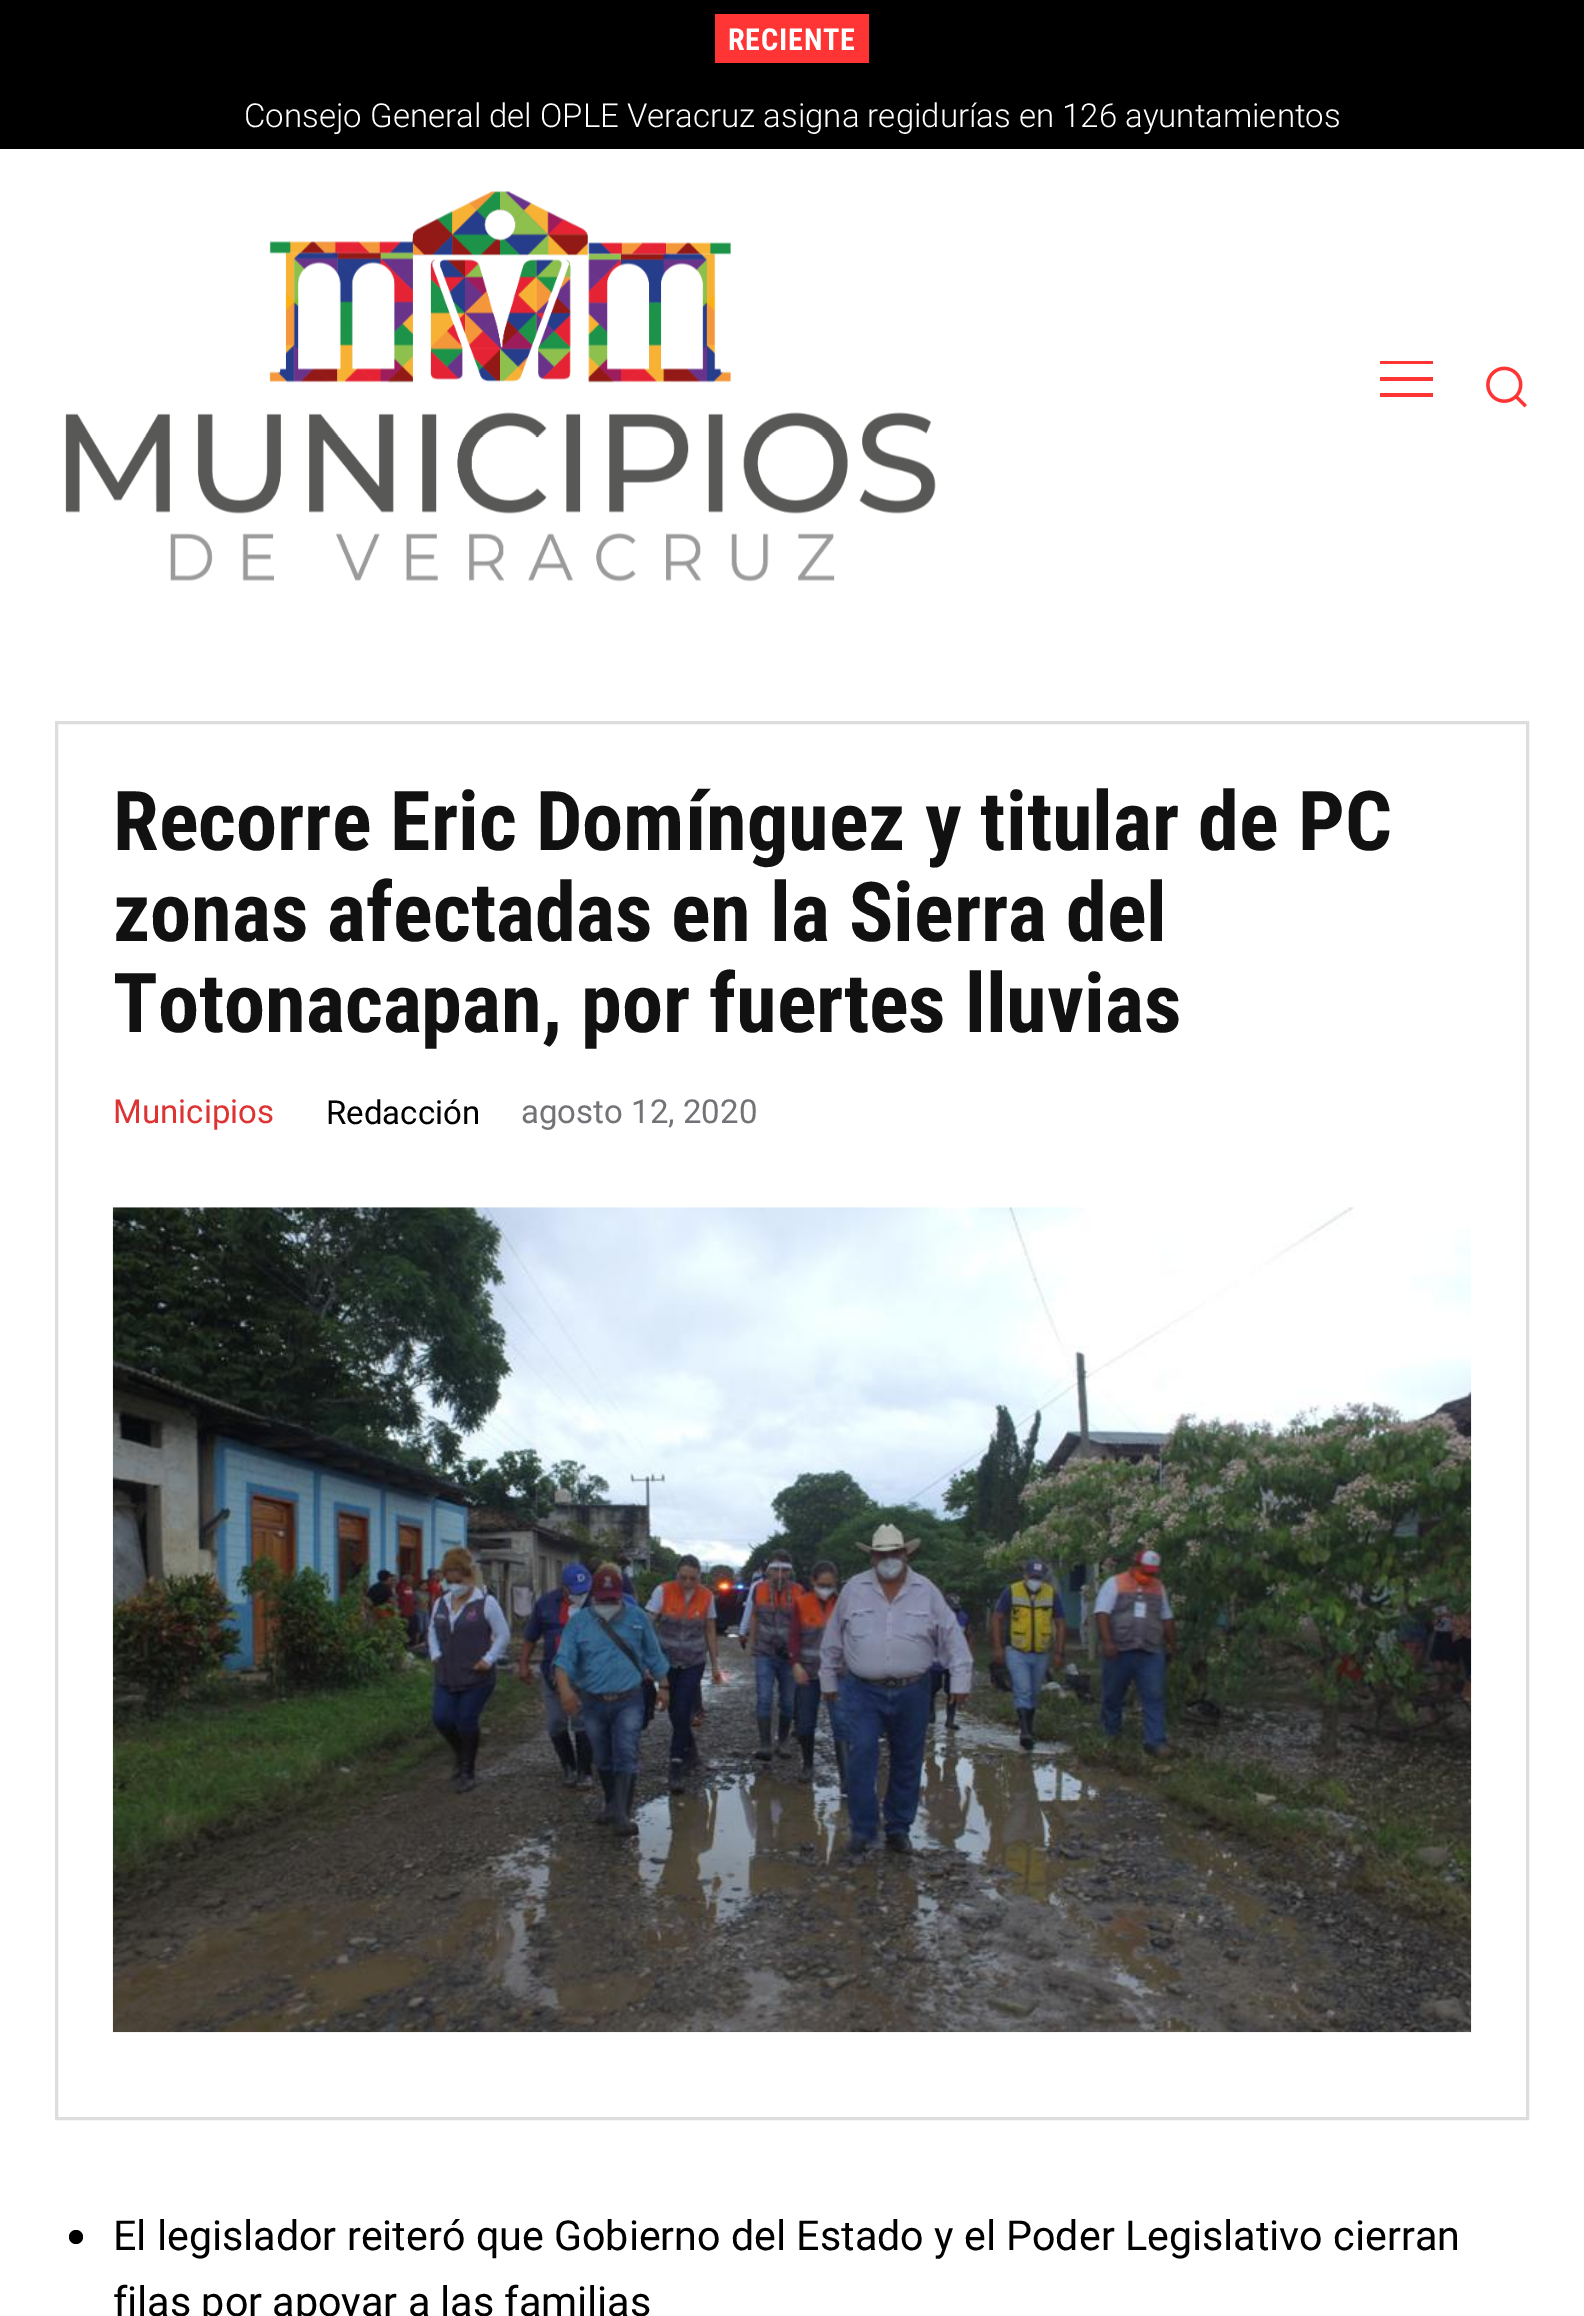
%!PS
<< /PageSize [1584 2316] >> setpagedevice
/rgb { 3 { 255 div 3 1 roll } repeat setrgbcolor } def
/font { [ exch dup neg 0 0 3 -1 roll 0 0 ] selectfont } def
/text { moveto show } def
/circle { newpath 0 360 arc closepath } def
/picture { 5 dict begin { /h /w /y /x /name } { exch def } forall
  gsave x y translate w h scale
  w h 8 [w 0 0 h 0 0] name (r) file false 3 colorimage grestore end } def
0 2316 translate 1 -1 scale
4 setmiterlimit
255 255 255 rgb
0 0 1584 2316 rectfill
0 0 0 rgb
0 0 1584 149 rectfill
255 53 53 rgb
715 14 154 49 rectfill
(img_01.rgb) 65 191 871 391 picture
1380 377 moveto 53 0 rlineto 0 4 rlineto -53 0 rlineto closepath 1380 361 moveto 53 0 rlineto 0 3 rlineto -53 0 rlineto closepath 1380 393 moveto 53 0 rlineto 0 4 rlineto -53 0 rlineto closepath fill
(img_02.rgb) 1486 366 41 42 picture
221 221 221 rgb
3 setlinewidth
56.5 722.5 1471 1396 rectstroke
(img_03.rgb) 112 1207 1360 826 picture
0 0 0 rgb
76 2237 7 circle fill
/RobotoCondensed-Bold 30.25 font
255 255 255 rgb
728 50 moveto 0.75 0 (RECIENTE) ashow
/Roboto-Light 33 font
(Consejo General del OPLE Veracruz asigna regidurías en 126 ayuntamientos) 244 127 text
/RobotoCondensed-Bold 82.5 font
17 17 17 rgb
(Recorre Eric Domínguez y titular de PC) 113 850 text
(zonas afectadas en la Sierra del) 113 941 text
(Totonacapan, por fuertes lluvias) 113 1032 text
/Roboto-Regular 33 font
221 51 51 rgb
(Municipios) 113 1123 text
0 0 0 rgb
(Redacción) 326 1124 text
114 114 119 rgb
(agosto 12, 2020) 521 1123 text
/Roboto-Regular 41.25 font
0 0 0 rgb
(El legislador reiteró que Gobierno del Estado y el Poder Legislativo cierran) 113 2250 text
(filas por apoyar a las familias) 113 2316 text
showpage
